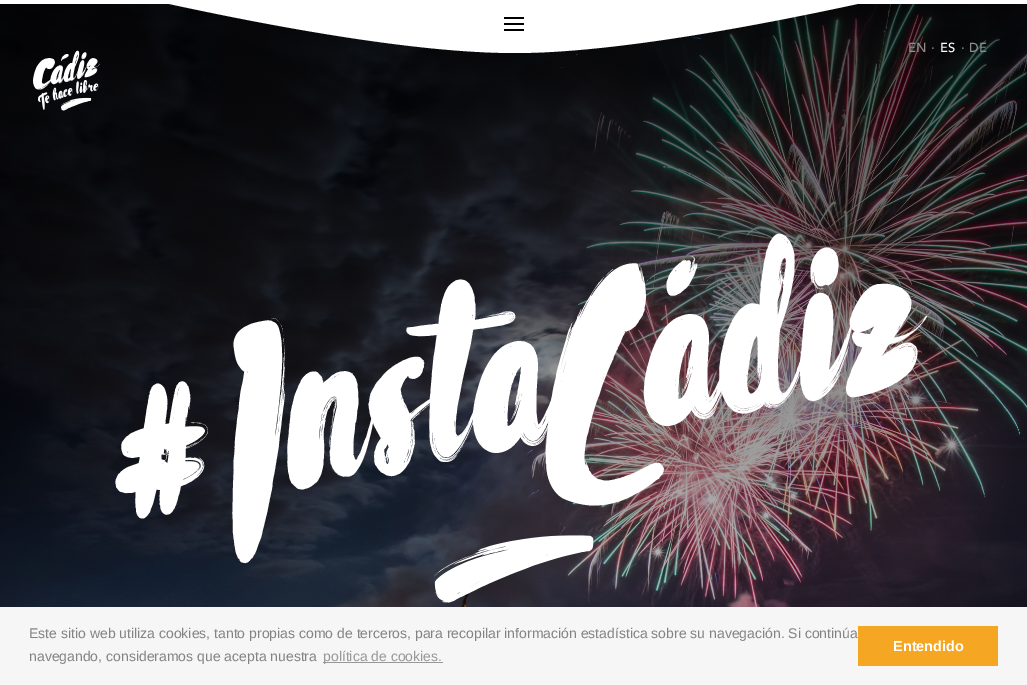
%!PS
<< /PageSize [1027 685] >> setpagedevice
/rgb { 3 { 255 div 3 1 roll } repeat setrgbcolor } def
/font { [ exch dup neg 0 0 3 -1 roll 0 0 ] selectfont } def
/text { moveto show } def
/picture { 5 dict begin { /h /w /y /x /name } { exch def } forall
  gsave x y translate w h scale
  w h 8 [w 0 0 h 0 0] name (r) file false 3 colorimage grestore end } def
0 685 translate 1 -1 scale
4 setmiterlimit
255 255 255 rgb
0 0 1027 685 rectfill
(img_02.rgb) 0 4 1027 603 picture
gsave
166 3 695 50 rectclip
-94 -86 moveto 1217 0 rlineto 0 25 rlineto 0 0 -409 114 -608 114 rcurveto -206 0 -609 -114 -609 -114 rcurveto closepath eofill
grestore
0 0 0 rgb
504 23 20 2 rectfill
504 17 20 2 rectfill
504 29 20 2 rectfill
(img_01.rgb) 33 50 67 61 picture
246 246 246 rgb
0 607 1027 78 rectfill
152 152 152 rgb
323 662 120 1 rectfill
245 166 35 rgb
858 626 140 40 rectfill
/Avenir-Medium 13 font
149 141 143 rgb
(EN) 908 52 text
132 131 132 rgb
(·) 931 52 text
255 255 255 rgb
(ES) 940 52 text
132 131 132 rgb
(·) 961 52 text
137 143 141 rgb
(DE) 969 52 text
/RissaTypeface-Regular 274 font
255 255 255 rgb
gsave 115 539 translate -9 rotate 0 0 moveto (#InstaCádiz) show grestore
(img_03.rgb) 434 535 160 68 picture
/LiberationSans-Regular 14 font
132 131 132 rgb
(Este sitio web utiliza cookies, tanto propias como de terceros, para recopilar información estadística sobre su navegación. Si continúa) 29 638 text
(navegando, consideramos que acepta nuestra) 29 661 text
152 152 152 rgb
(política de cookies.) 323 661 text
/LiberationSans-Bold 14.5 font
255 255 255 rgb
(Entendido) 893 651 text
showpage
